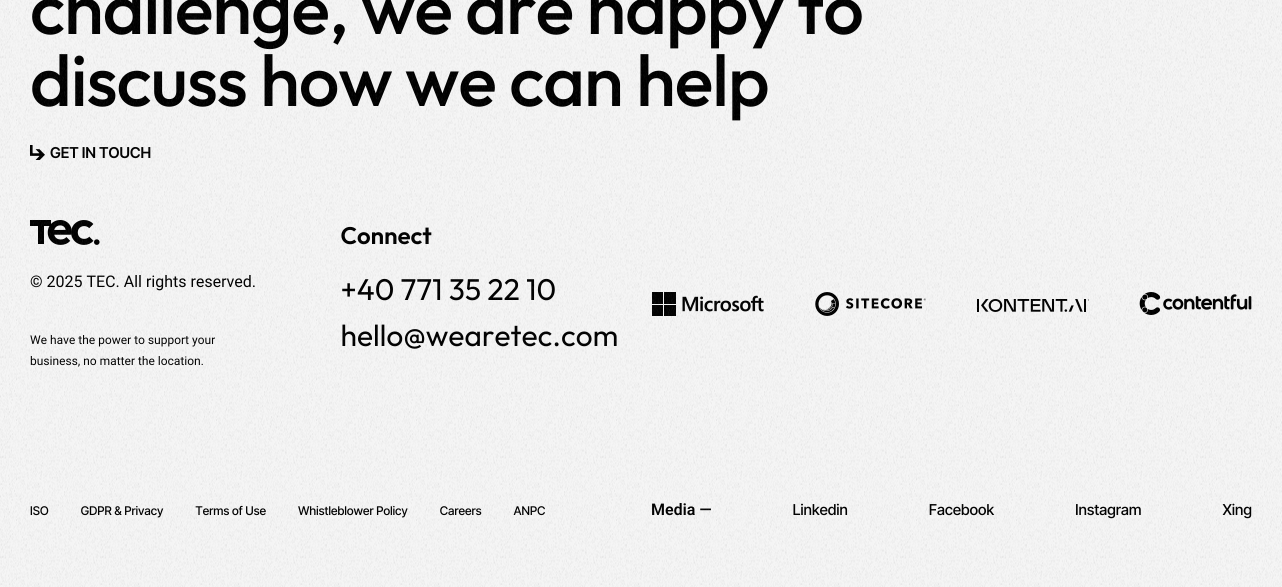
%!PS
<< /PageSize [1282 587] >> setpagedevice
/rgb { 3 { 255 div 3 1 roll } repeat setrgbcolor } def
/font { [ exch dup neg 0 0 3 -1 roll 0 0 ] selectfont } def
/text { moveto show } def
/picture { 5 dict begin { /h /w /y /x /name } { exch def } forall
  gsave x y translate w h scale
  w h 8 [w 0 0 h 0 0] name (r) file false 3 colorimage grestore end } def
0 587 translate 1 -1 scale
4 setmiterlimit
245 245 245 rgb
0 0 1282 587 rectfill
(img_02.rgb) 30 145 15 15 picture
(img_03.rgb) 30 220 70 25 picture
(img_04.rgb) 652 292 112 24 picture
(img_05.rgb) 815 292 111 24 picture
(img_06.rgb) 977 299 112 13 picture
(img_07.rgb) 1139 292 113 23 picture
/Outfit-Medium 72 font
0 0 0 rgb
30 34 moveto -1 0 (challenge, we are happy to) ashow
30 106 moveto -1 0 (discuss how we can help) ashow
/InterTight-SemiBold 15 font
(GET IN TOUCH) 50 158 text
/Roboto-Regular 16 font
(© 2025 TEC. All rights reserved.) 30 287 text
/Roboto-Regular 12 font
(We have the power to support your) 30 344 text
(business, no matter the location.) 30 365 text
/Outfit-SemiBold 24 font
(Connect) 341 244 text
/Outfit-Regular 30 font
(+40 771 35 22 10) 341 300 text
(hello@wearetec.com) 341 346 text
/InterTight-Medium 12 font
(ISO) 30 515 text
(GDPR & Privacy) 81 515 text
(Terms of Use) 195 515 text
(Whistleblower Policy) 298 515 text
(Careers) 440 515 text
(ANPC) 514 515 text
/Roboto-SemiBold 16 font
(Media —) 651 515 text
/InterTight-Medium 15 font
(Linkedin) 793 515 text
(Facebook) 929 515 text
(Instagram) 1075 515 text
(Xing) 1223 515 text
(img_01.rgb) 0 0 1282 587 picture
showpage
